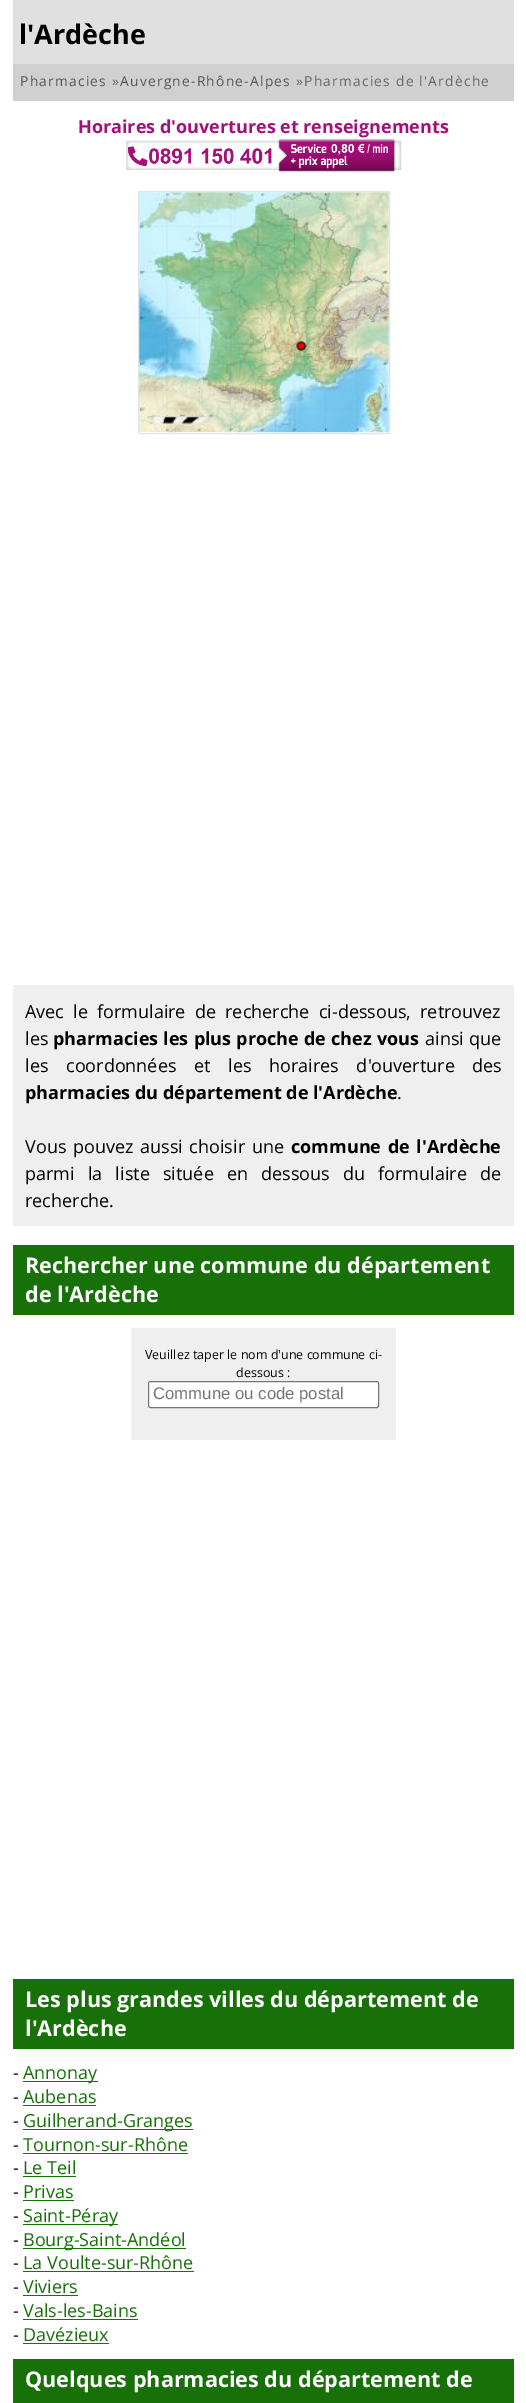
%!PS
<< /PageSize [526 2403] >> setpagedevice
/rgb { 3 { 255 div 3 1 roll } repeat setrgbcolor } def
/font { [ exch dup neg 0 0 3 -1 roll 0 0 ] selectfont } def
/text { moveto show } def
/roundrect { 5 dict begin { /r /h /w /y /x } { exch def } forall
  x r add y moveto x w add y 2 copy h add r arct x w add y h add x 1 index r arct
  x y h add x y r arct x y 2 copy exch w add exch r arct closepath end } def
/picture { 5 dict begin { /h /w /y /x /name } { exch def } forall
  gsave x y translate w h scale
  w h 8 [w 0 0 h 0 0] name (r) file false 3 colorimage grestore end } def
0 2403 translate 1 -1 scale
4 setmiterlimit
255 255 255 rgb
0 0 526 2403 rectfill
224 224 224 rgb
13 0 501 64 rectfill
208 208 208 rgb
13 64 501 37 rectfill
(img_01.rgb) 126 138 276 35 picture
(img_02.rgb) 139 192 250 241 picture
223 231 234 rgb
138.5 191.5 251 242 rectstroke
(img_03.rgb) 296 340 11 12 picture
239 239 239 rgb
13 985 501 241 rectfill
24 112 9 rgb
13 1245 501 70 rectfill
239 239 239 rgb
131 1328 265 112 rectfill
255 255 255 rgb
148.5 1381.5 230 26 2 roundrect gsave fill grestore
118 118 118 rgb
stroke
24 112 9 rgb
13 1979 501 70 rectfill
23 2081 75 1 rectfill
23 2105 73 1 rectfill
23 2129 170 1 rectfill
23 2153 165 1 rectfill
23 2176 53 1 rectfill
23 2200 51 1 rectfill
23 2224 95 1 rectfill
23 2248 163 1 rectfill
23 2271 171 1 rectfill
23 2295 55 1 rectfill
23 2319 115 1 rectfill
23 2343 86 1 rectfill
13 2359 501 44 rectfill
/OpenSans-Bold 27 font
0 0 0 rgb
(l'Ardèche) 19 44 text
/OpenSans-Regular 13.75 font
85 85 85 rgb
20 86 moveto 1.25 0 (Pharmacies) ashow
102 102 102 rgb
112 86 moveto 1.25 0 (») ashow
85 85 85 rgb
120 86 moveto 1.25 0 (Auvergne-Rhône-Alpes) ashow
102 102 102 rgb
296 86 moveto 1.25 0 (»Pharmacies de l'Ardèche) ashow
/OpenSans-Bold 18 font
165 15 120 rgb
(Horaires d'ouvertures et renseignements) 78 133 text
/OpenSans-Regular 18 font
0 0 0 rgb
25 1018 moveto 4.5 0 32 (Avec le formulaire de recherche ci-dessous, retrouvez) widthshow
(les) 25 1045 text
/OpenSans-Bold 18 font
53 1045 moveto 0.5 0 32 (pharmacies les plus proche de chez vous) widthshow
/OpenSans-Regular 18 font
425 1045 moveto 1 0 32 (ainsi que) widthshow
25 1072 moveto 13 0 32 (les coordonnées et les horaires d'ouverture des) widthshow
/OpenSans-Bold 18 font
(pharmacies du département de l'Ardèche) 25 1099 text
/OpenSans-Regular 18 font
(.) 397 1099 text
25 1153 moveto 2 0 32 (Vous pouvez aussi choisir une) widthshow
/OpenSans-Bold 18 font
291 1153 moveto 2 0 32 (commune de l'Ardèche) widthshow
/OpenSans-Regular 18 font
25 1180 moveto 8.5 0 32 (parmi la liste située en dessous du formulaire de) widthshow
(recherche.) 25 1207 text
/OpenSans-Bold 21.6 font
255 255 255 rgb
(Rechercher une commune du département) 25 1273 text
(de l'Ardèche) 25 1302 text
/OpenSans-Regular 12.5 font
0 0 0 rgb
(Veuillez taper le nom d'une commune ci-) 145 1359 text
(dessous :) 236 1377 text
/LiberationSans-Regular 16.75 font
117 117 117 rgb
(Commune ou code postal) 153 1399 text
/OpenSans-Bold 21.6 font
255 255 255 rgb
(Les plus grandes villes du département de) 25 2007 text
(l'Ardèche) 25 2036 text
/OpenSans-Regular 18 font
0 0 0 rgb
(-) 13 2079 text
24 112 9 rgb
(Annonay) 23 2079 text
0 0 0 rgb
(-) 13 2103 text
24 112 9 rgb
(Aubenas) 23 2103 text
0 0 0 rgb
(-) 13 2127 text
24 112 9 rgb
(Guilherand-Granges) 23 2127 text
0 0 0 rgb
(-) 13 2151 text
24 112 9 rgb
(Tournon-sur-Rhône) 23 2151 text
0 0 0 rgb
(-) 13 2174 text
24 112 9 rgb
(Le Teil) 23 2174 text
0 0 0 rgb
(-) 13 2198 text
24 112 9 rgb
(Privas) 23 2198 text
0 0 0 rgb
(-) 13 2222 text
24 112 9 rgb
(Saint-Péray) 23 2222 text
0 0 0 rgb
(-) 13 2246 text
24 112 9 rgb
(Bourg-Saint-Andéol) 23 2246 text
0 0 0 rgb
(-) 13 2269 text
24 112 9 rgb
(La Voulte-sur-Rhône) 23 2269 text
0 0 0 rgb
(-) 13 2293 text
24 112 9 rgb
(Viviers) 23 2293 text
0 0 0 rgb
(-) 13 2317 text
24 112 9 rgb
(Vals-les-Bains) 23 2317 text
0 0 0 rgb
(-) 13 2341 text
24 112 9 rgb
(Davézieux) 23 2341 text
/OpenSans-Bold 21.6 font
255 255 255 rgb
(Quelques pharmacies du département de) 25 2387 text
showpage
